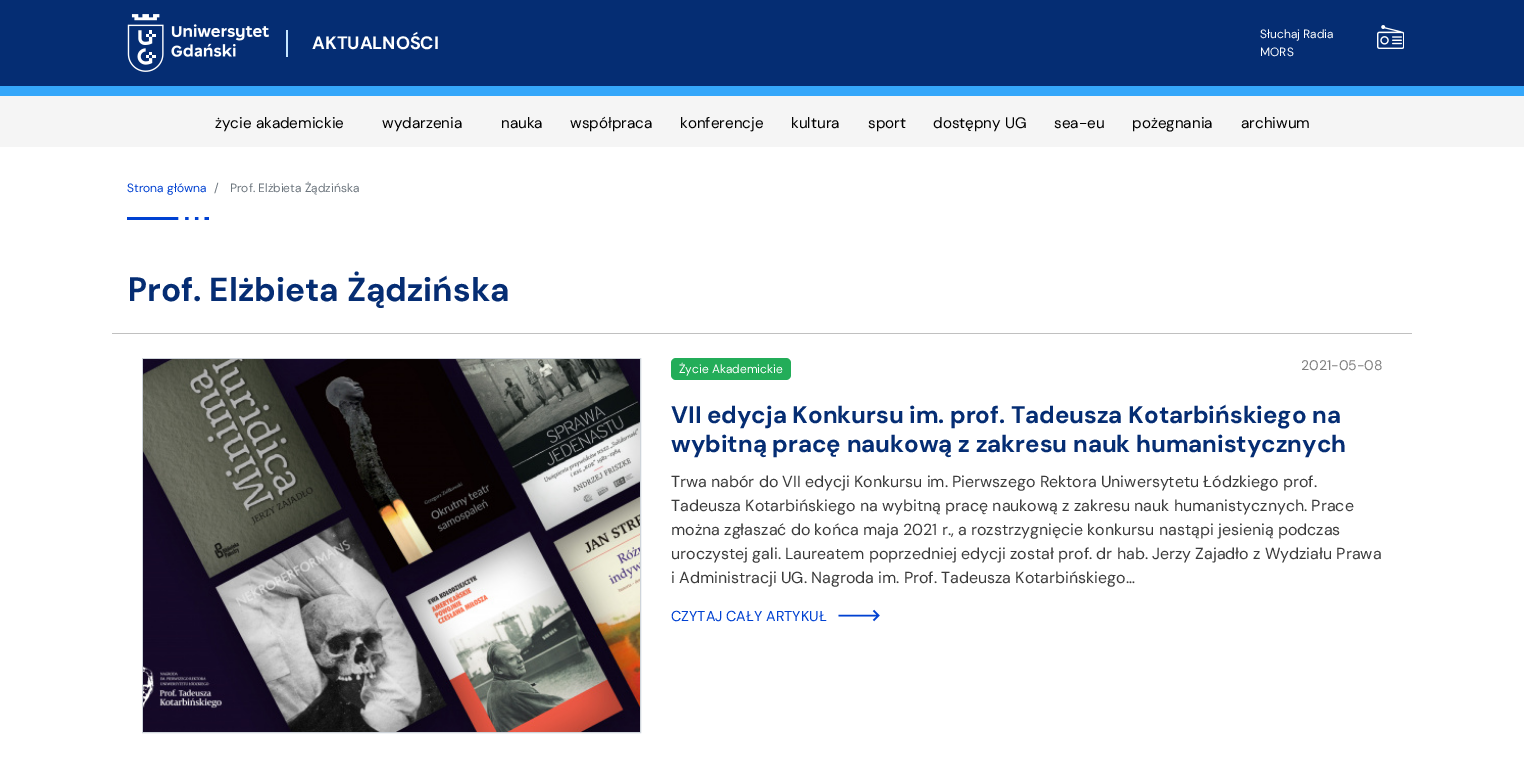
%!PS
<< /PageSize [1524 765] >> setpagedevice
/rgb { 3 { 255 div 3 1 roll } repeat setrgbcolor } def
/font { [ exch dup neg 0 0 3 -1 roll 0 0 ] selectfont } def
/text { moveto show } def
/roundrect { 5 dict begin { /r /h /w /y /x } { exch def } forall
  x r add y moveto x w add y 2 copy h add r arct x w add y h add x 1 index r arct
  x y h add x y r arct x y 2 copy exch w add exch r arct closepath end } def
/picture { 5 dict begin { /h /w /y /x /name } { exch def } forall
  gsave x y translate w h scale
  w h 8 [w 0 0 h 0 0] name (r) file false 3 colorimage grestore end } def
0 765 translate 1 -1 scale
4 setmiterlimit
255 255 255 rgb
0 0 1524 765 rectfill
5 45 115 rgb
0 0 1524 86 rectfill
53 167 250 rgb
0 86 1524 10 rectfill
(img_01.rgb) 127 14 142 58 picture
197 229 255 rgb
286 30 2 27 rectfill
(img_02.rgb) 1377 25 27 24 picture
245 245 245 rgb
0 96 1524 51 rectfill
(img_03.rgb) 127 217 82 3 picture
192 192 192 rgb
112 333 1300 1 rectfill
206 212 218 rgb
142.5 358.5 498 374 rectstroke
(img_04.rgb) 143 359 497 373 picture
35 173 89 rgb
671 358 120 22 5 roundrect fill
0 65 210 rgb
1.5 setlinewidth
873.5 620.5 moveto 5 -5 rlineto -5 -5 rlineto 877.5 615.5 moveto -39 0 rlineto stroke
/DMSans-Bold 18 font
255 255 255 rgb
(AKTUALNOŚCI) 312 49 text
/DMSans-Regular 12 font
(Słuchaj Radia) 1260 38 text
(MORS) 1260 56 text
/DMSans-Regular 15.25 font
0 0 0 rgb
(życie akademickie) 215 128 text
(wydarzenia) 382 128 text
(nauka) 501 128 text
(współpraca) 570 128 text
(konferencje) 680 128 text
(kultura) 791 128 text
(sport) 868 128 text
(dostępny UG) 933 128 text
(sea-eu) 1054 128 text
(pożegnania) 1132 128 text
(archiwum) 1241 128 text
/DMSans-Regular 12 font
0 65 210 rgb
(Strona główna) 127 192 text
108 117 125 rgb
(/) 214 192 text
(Prof. Elżbieta Żądzińska) 230 192 text
/NotoSans-SemiBold 33.25 font
5 45 115 rgb
(P) 127 301 text
/DMSans-Bold 33.25 font
(rof. Elżbieta Żądzińska) 147 301 text
/DMSans-Regular 12 font
255 255 255 rgb
(Życie Akademickie) 679 373 text
/DMSans-Regular 14 font
128 128 128 rgb
(2021-05-08) 1301 370 text
/DMSans-Bold 24 font
5 45 115 rgb
(VII edycja Konkursu im. prof. Tadeusza Kotarbińskiego na) 671 423 text
(wybitną pracę naukową z zakresu nauk humanistycznych) 671 452 text
/DMSans-Regular 16 font
59 59 59 rgb
(Trwa nabór do VII edycji Konkursu im. Pierwszego Rektora Uniwersytetu Łódzkiego prof.) 671 487 text
(Tadeusza Kotarbińskiego na wybitną pracę naukową z zakresu nauk humanistycznych. Prace) 671 511 text
(można zgłaszać do końca maja 2021 r., a rozstrzygnięcie konkursu nastąpi jesienią podczas) 671 535 text
(uroczystej gali. Laureatem poprzedniej edycji został prof. dr hab. Jerzy Zajadło z Wydziału Prawa) 671 559 text
(i Administracji UG. Nagroda im. Prof. Tadeusza Kotarbińskiego…) 671 583 text
/DMSans-Regular 14.4 font
0 65 210 rgb
(CZYTAJ CAŁY ARTYKUŁ) 671 621 text
showpage
